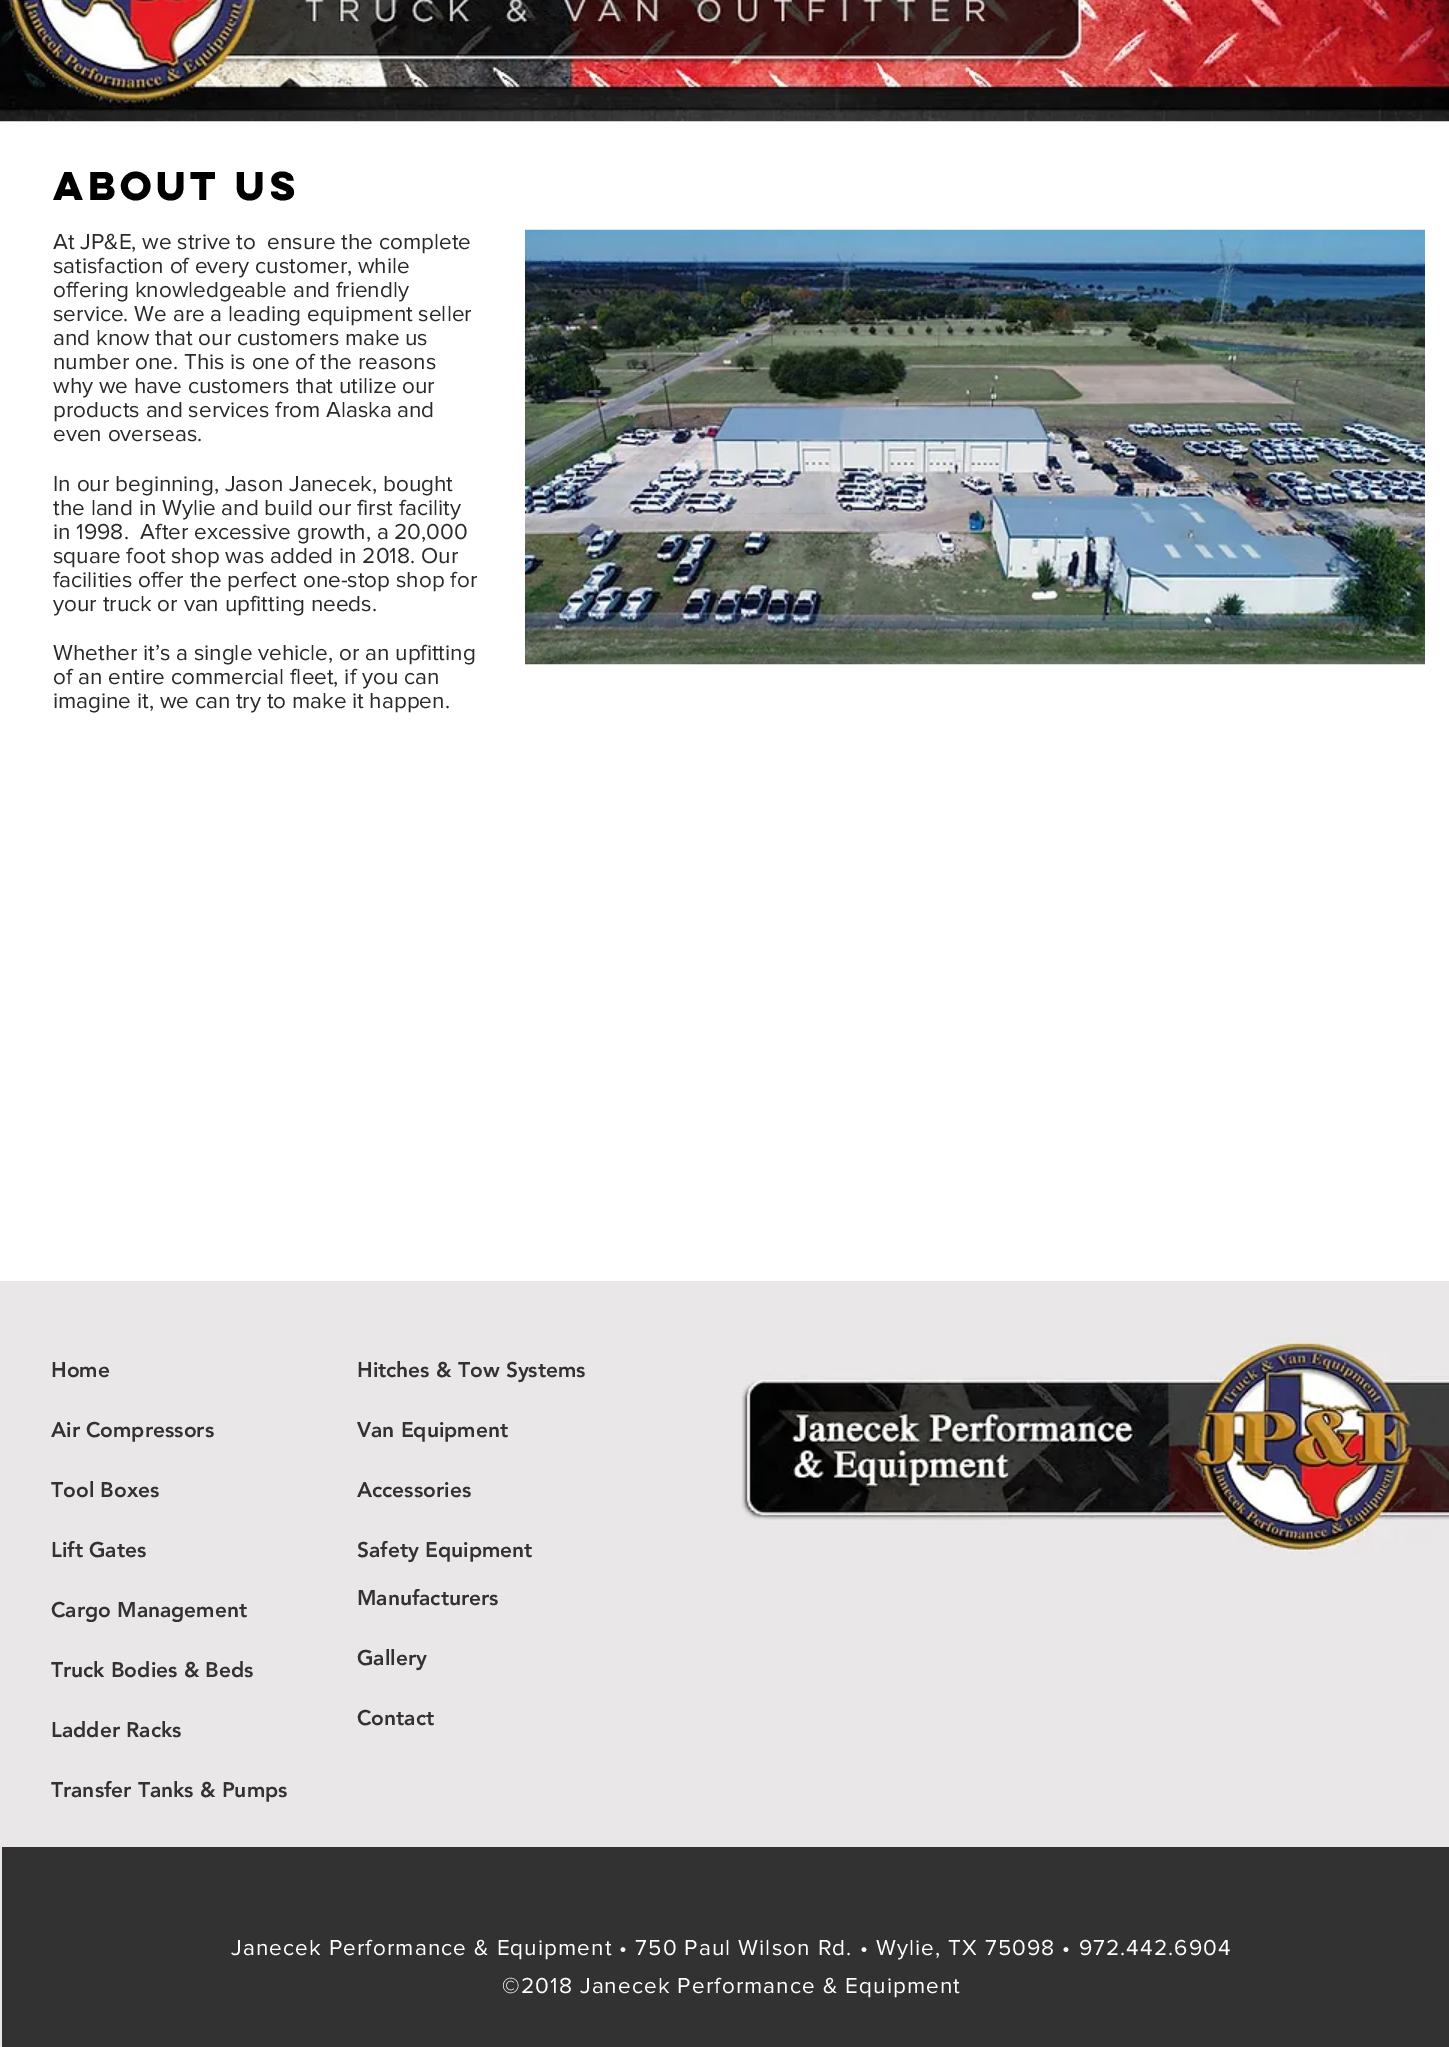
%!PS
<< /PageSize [1449 2047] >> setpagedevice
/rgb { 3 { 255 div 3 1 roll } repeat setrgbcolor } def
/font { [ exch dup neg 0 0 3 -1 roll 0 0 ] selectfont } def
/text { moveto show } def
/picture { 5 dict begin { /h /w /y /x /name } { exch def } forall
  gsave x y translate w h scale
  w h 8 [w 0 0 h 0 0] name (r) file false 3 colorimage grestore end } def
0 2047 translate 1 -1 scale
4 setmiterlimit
255 255 255 rgb
0 0 1449 2047 rectfill
(img_01.rgb) 0 0 1449 122 picture
(img_02.rgb) 525 229 900 436 picture
233 231 232 rgb
0 1281 1449 766 rectfill
(img_03.rgb) 741 1337 708 218 picture
50 50 50 rgb
2 1847 1447 200 rectfill
/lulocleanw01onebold-Bold 36 font
0 0 0 rgb
53 200 moveto -3.5 0 (About Us) ashow
/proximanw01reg-Regular 22.5 font
42 42 42 rgb
(At JP&E, we strive to  ensure the complete) 53 249 text
(satisfaction of every customer, while) 53 273 text
(offering knowledgeable and friendly) 53 297 text
(service. We are a leading equipment seller) 53 321 text
(and know that our customers make us) 53 345 text
(number one. This is one of the reasons) 53 369 text
(why we have customers that utilize our) 53 393 text
(products and services from Alaska and) 53 417 text
(even overseas.) 53 441 text
(In our beginning, Jason Janecek, bought) 53 491 text
(the land in Wylie and build our first facility) 53 515 text
(in 1998.  After excessive growth, a 20,000) 53 539 text
(square foot shop was added in 2018. Our) 53 563 text
(facilities offer the perfect one-stop shop for) 53 587 text
(your truck or van upfitting needs.) 53 611 text
(Whether it’s a single vehicle, or an upfitting) 53 660 text
(of an entire commercial fleet, if you can) 53 684 text
(imagine it, we can try to make it happen.) 53 708 text
/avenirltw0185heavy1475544-Black 21 font
50 50 50 rgb
(Home) 51 1377 text
(Hitches & Tow Systems) 357 1377 text
(Air Compressors) 51 1437 text
(Van Equipment) 357 1437 text
(Tool Boxes) 51 1497 text
(Accessories) 357 1497 text
(Lift Gates) 51 1557 text
(Safety Equipment) 357 1557 text
(Manufacturers) 357 1605 text
(Cargo Management) 51 1617 text
(Truck Bodies & Beds) 51 1677 text
(Gallery) 357 1665 text
(Contact) 357 1725 text
(Ladder Racks) 51 1737 text
(Transfer Tanks & Pumps) 51 1797 text
/proximanw01reg-Regular 22.5 font
255 255 255 rgb
231 1955 moveto 1.12 0 (Janecek Performance & Equipment • 750 Paul Wilson Rd. • Wylie, TX 75098 • 972.442.6904) ashow
502 1993 moveto 1.12 0 (©2018 Janecek Performance & Equipment) ashow
showpage
